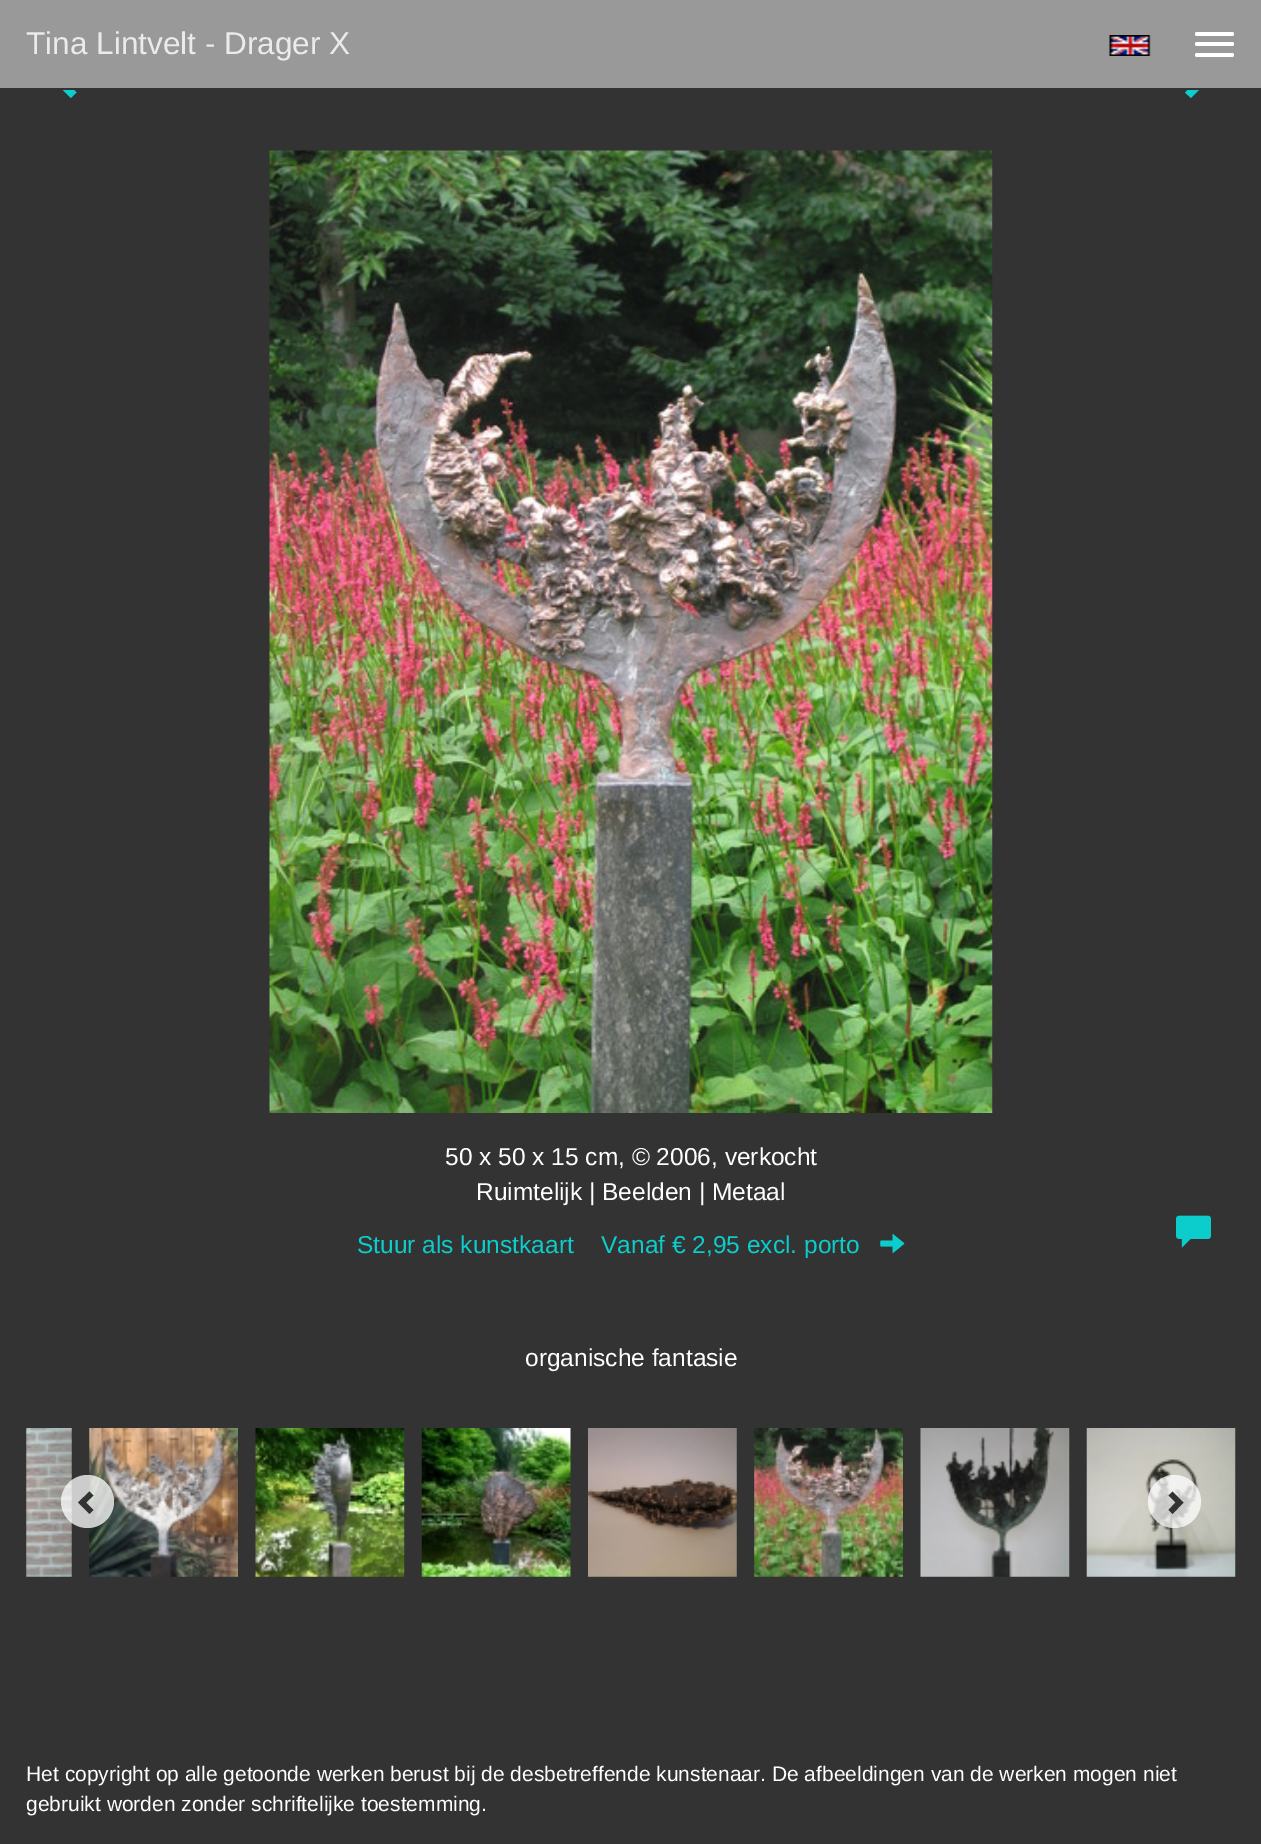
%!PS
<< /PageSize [1261 1844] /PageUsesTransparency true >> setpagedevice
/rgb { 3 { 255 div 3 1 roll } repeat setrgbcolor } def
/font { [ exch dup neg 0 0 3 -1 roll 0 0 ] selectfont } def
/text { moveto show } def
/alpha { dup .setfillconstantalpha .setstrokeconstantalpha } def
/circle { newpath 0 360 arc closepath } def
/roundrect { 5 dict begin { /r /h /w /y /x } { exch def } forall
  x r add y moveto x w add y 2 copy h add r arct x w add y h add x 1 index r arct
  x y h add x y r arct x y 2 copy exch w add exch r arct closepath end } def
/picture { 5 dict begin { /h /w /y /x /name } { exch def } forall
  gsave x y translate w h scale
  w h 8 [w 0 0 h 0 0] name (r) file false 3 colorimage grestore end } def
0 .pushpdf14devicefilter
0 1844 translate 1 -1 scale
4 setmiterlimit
51 51 51 rgb
0 0 1261 1844 rectfill
12 204 204 rgb
76.5 72 moveto -10 10 rlineto 10 10.5 rlineto -5.5 5.5 rlineto -16.5 -16 rlineto 16.5 -16 rlineto closepath fill
1207 82 moveto -16 16 rlineto -6 -5.5 rlineto 10.5 -10.5 rlineto -10.5 -10 rlineto 6 -6 rlineto closepath fill
153 153 153 rgb
0 0 1261 88 rectfill
51 51 51 rgb
60 88 1141 2 rectfill
255 255 255 rgb
1195 32 39 4 2 roundrect fill
1195 42 39 4 2 roundrect fill
1195 53 39 4 2 roundrect fill
(img_01.rgb) 1109 35 42 21 picture
(img_02.rgb) 269 150 724 963 picture
(img_03.rgb) 880 1234 25 19 picture
(img_04.rgb) 1176 1215 35 33 picture
(img_05.rgb) 26 1428 46 149 picture
(img_06.rgb) 89 1428 149 149 picture
(img_07.rgb) 255 1428 150 149 picture
(img_08.rgb) 421 1428 150 149 picture
(img_09.rgb) 588 1428 149 149 picture
(img_10.rgb) 754 1428 149 149 picture
(img_11.rgb) 920 1428 150 149 picture
(img_12.rgb) 1086 1428 150 149 picture
0.75 alpha
87.5 1501.5 26.5 circle fill
1 alpha
51 51 51 rgb
93.5 1495.5 moveto -7.5 7 rlineto 7.5 7.5 rlineto -4 4 rlineto -11.5 -11.5 rlineto 11.5 -11 rlineto closepath fill
0.75 alpha
255 255 255 rgb
1174.5 1501.5 26.5 circle fill
1 alpha
51 51 51 rgb
1183.5 1502.5 moveto -11 11.5 rlineto -4 -4 rlineto 7 -7.5 rlineto -7 -7 rlineto 4 -4 rlineto closepath fill
/LiberationSans-Regular 31.5 font
235 235 235 rgb
(Tina Lintvelt - Drager X) 26 54 text
/LiberationSans-Regular 24.5 font
255 255 255 rgb
(50 x 50 x 15 cm, © 2006, verkocht) 445 1165 text
(Ruimtelijk | Beelden | Metaal) 476 1200 text
12 204 204 rgb
(Stuur als kunstkaart) 357 1253 text
(Vanaf € 2,95 excl. porto) 601 1253 text
255 255 255 rgb
(organische fantasie) 525 1366 text
/LiberationSans-Regular 21 font
(Het copyright op alle getoonde werken berust bij de desbetreffende kunstenaar. De afbeeldingen van de werken mogen niet) 26 1781 text
(gebruikt worden zonder schriftelijke toestemming.) 26 1811 text
.poppdf14devicefilter showpage
